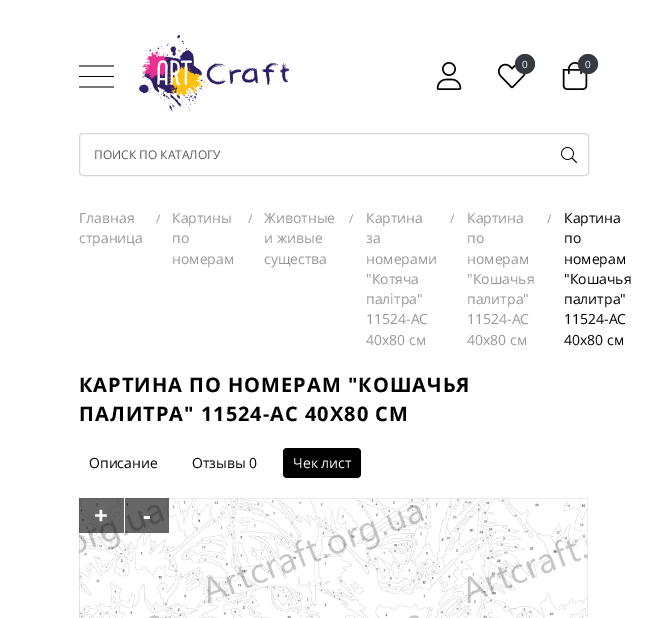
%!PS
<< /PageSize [667 618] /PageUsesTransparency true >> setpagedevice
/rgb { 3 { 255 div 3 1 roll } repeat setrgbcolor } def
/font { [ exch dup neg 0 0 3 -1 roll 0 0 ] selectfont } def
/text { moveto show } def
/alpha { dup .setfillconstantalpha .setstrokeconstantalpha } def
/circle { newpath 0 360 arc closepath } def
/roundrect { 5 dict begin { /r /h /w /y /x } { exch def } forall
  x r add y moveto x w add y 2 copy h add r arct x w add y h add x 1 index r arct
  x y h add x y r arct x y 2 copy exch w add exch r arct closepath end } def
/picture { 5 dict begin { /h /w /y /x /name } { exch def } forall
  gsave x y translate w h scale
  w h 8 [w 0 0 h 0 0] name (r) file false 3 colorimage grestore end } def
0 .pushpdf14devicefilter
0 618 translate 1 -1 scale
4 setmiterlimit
255 255 255 rgb
0 0 667 618 rectfill
0 0 0 rgb
79 65.5 moveto 0 1 rlineto 35 0 rlineto 0 -1 rlineto closepath 79 76 moveto 0 1 rlineto 35 0 rlineto 0 -1 rlineto closepath 79 86.5 moveto 0 1 rlineto 35 0 rlineto 0 -1 rlineto closepath fill
(img_01.rgb) 139 35 150 78 picture
(img_02.rgb) 436 62 26 28 picture
(img_03.rgb) 498 63 28 26 picture
52 58 64 rgb
525 64 10 circle fill
(img_04.rgb) 562 62 26 28 picture
588 64 10 circle fill
214 214 214 rgb
79.5 133.5 509 42 3.5 roundrect stroke
(img_05.rgb) 561 147 16 16 picture
0 0 0 rgb
283 448 78 30 4 roundrect fill
(img_06.rgb) 79 498 509 120 picture
0.6 alpha
79 498 90 35 rectfill
1 alpha
255 255 255 rgb
124 498 1 35 rectfill
/OpenSans-Regular 10 font
(0) 522 68 text
(0) 585 68 text
/OpenSans-Regular 12 font
89 89 89 rgb
(ПОИСК ПО КАТАЛОГУ) 94 159 text
/OpenSans-Regular 14 font
152 152 152 rgb
(Главная) 79 223 text
/OpenSans-Regular 12 font
(/) 156 223 text
/OpenSans-Regular 14 font
(страница) 79 243 text
(Картины) 172 223 text
/OpenSans-Regular 12 font
(/) 248 223 text
/OpenSans-Regular 14 font
(по) 172 243 text
(номерам) 172 264 text
(Животные) 264 223 text
/OpenSans-Regular 12 font
(/) 349 223 text
/OpenSans-Regular 14 font
(и живые) 264 243 text
(существа) 264 264 text
(Картина) 366 223 text
/OpenSans-Regular 12 font
(/) 450 223 text
/OpenSans-Regular 14 font
(за) 366 243 text
(номерами) 366 264 text
("Котяча) 366 284 text
(палітра") 366 304 text
(11524-AC) 366 324 text
(40х80 см) 366 345 text
(Картина) 467 223 text
/OpenSans-Regular 12 font
(/) 547 223 text
/OpenSans-Regular 14 font
(по) 467 243 text
(номерам) 467 264 text
("Кошачья) 467 284 text
(палитра") 467 304 text
(11524-AC) 467 324 text
(40х80 см) 467 345 text
0 0 0 rgb
(Картина) 564 223 text
(по) 564 243 text
(номерам) 564 264 text
("Кошачья) 564 284 text
(палитра") 564 304 text
(11524-AC) 564 324 text
(40х80 см) 564 345 text
/OpenSans-Bold 20 font
79 392 moveto 1 0 (КАРТИНА ПО НОМЕРАМ "КОШАЧЬЯ) ashow
79 421 moveto 1 0 (ПАЛИТРА" 11524-AC 40Х80 СМ) ashow
/OpenSans-Regular 14 font
(Описание) 89 468 text
(Отзывы 0) 192 468 text
255 255 255 rgb
(Чек лист) 293 468 text
/OpenSans-Bold 24 font
(+) 94 524 text
(-) 143 524 text
.poppdf14devicefilter showpage
